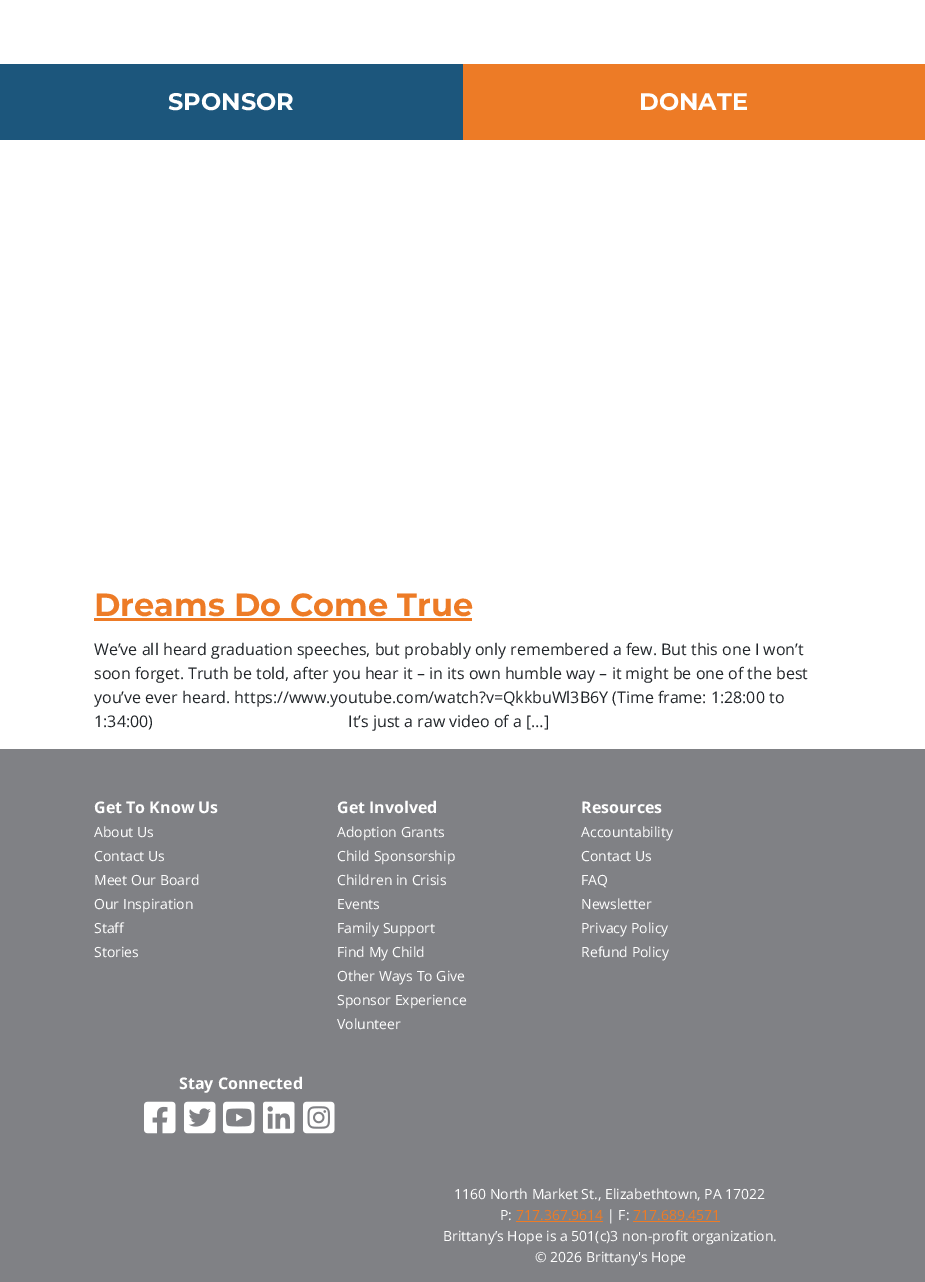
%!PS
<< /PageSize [925 1282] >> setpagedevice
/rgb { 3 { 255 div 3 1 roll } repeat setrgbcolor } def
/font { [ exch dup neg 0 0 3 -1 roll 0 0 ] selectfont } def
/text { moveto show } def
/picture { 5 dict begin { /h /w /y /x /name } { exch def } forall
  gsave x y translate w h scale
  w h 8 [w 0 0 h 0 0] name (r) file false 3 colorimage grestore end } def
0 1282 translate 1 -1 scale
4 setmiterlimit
255 255 255 rgb
0 0 925 1282 rectfill
28 86 124 rgb
0 64 463 76 rectfill
237 123 38 rgb
463 64 462 76 rectfill
94 618 378 3 rectfill
128 129 133 rgb
0 749 925 533 rectfill
(img_01.rgb) 144 1101 32 33 picture
(img_02.rgb) 184 1101 32 33 picture
(img_03.rgb) 223 1101 32 33 picture
(img_04.rgb) 263 1101 32 33 picture
(img_05.rgb) 303 1101 32 33 picture
237 123 38 rgb
516 1221 87 1 rectfill
633 1221 87 1 rectfill
/Montserrat-Bold 24 font
255 255 255 rgb
(SPONSOR) 168 110 text
(DONATE) 639 110 text
/Montserrat-Bold 32 font
237 123 38 rgb
(Dreams Do Come True) 94 616 text
/OpenSans-Regular 16 font
33 37 41 rgb
(We’ve all heard graduation speeches, but probably only remembered a few. But this one I won’t) 94 655 text
(soon forget. Truth be told, after you hear it – in its own humble way – it might be one of the best) 94 679 text
(you’ve ever heard. https://www.youtube.com/watch?v=QkkbuWl3B6Y \(Time frame: 1:28:00 to) 94 703 text
(1:34:00\)                                               It’s just a raw video of a […]) 94 727 text
/OpenSans-Bold 16 font
255 255 255 rgb
(Get To Know Us) 94 813 text
/OpenSans-Regular 14 font
(About Us) 94 837 text
(Contact Us) 94 861 text
(Meet Our Board) 94 885 text
(Our Inspiration) 94 909 text
(Staff) 94 933 text
(Stories) 94 957 text
/OpenSans-Bold 16 font
(Get Involved) 337 813 text
/OpenSans-Regular 14 font
(Adoption Grants) 337 837 text
(Child Sponsorship) 337 861 text
(Children in Crisis) 337 885 text
(Events) 337 909 text
(Family Support) 337 933 text
(Find My Child) 337 957 text
(Other Ways To Give) 337 981 text
(Sponsor Experience) 337 1005 text
(Volunteer) 337 1029 text
/OpenSans-Bold 16 font
(Resources) 581 813 text
/OpenSans-Regular 14 font
(Accountability) 581 837 text
(Contact Us) 581 861 text
(FAQ) 581 885 text
(Newsletter) 581 909 text
(Privacy Policy) 581 933 text
(Refund Policy) 581 957 text
/OpenSans-Bold 16 font
(Stay Connected) 179 1089 text
/OpenSans-Regular 14 font
(1160 North Market St., Elizabethtown, PA 17022) 454 1199 text
(P:) 500 1220 text
237 123 38 rgb
(717.367.9614) 516 1220 text
255 255 255 rgb
(| F:) 607 1220 text
237 123 38 rgb
(717.689.4571) 633 1220 text
255 255 255 rgb
(Brittany’s Hope is a 501\(c\)3 non-profit organization.) 443 1241 text
(© 2026 Brittany's Hope) 535 1262 text
showpage
